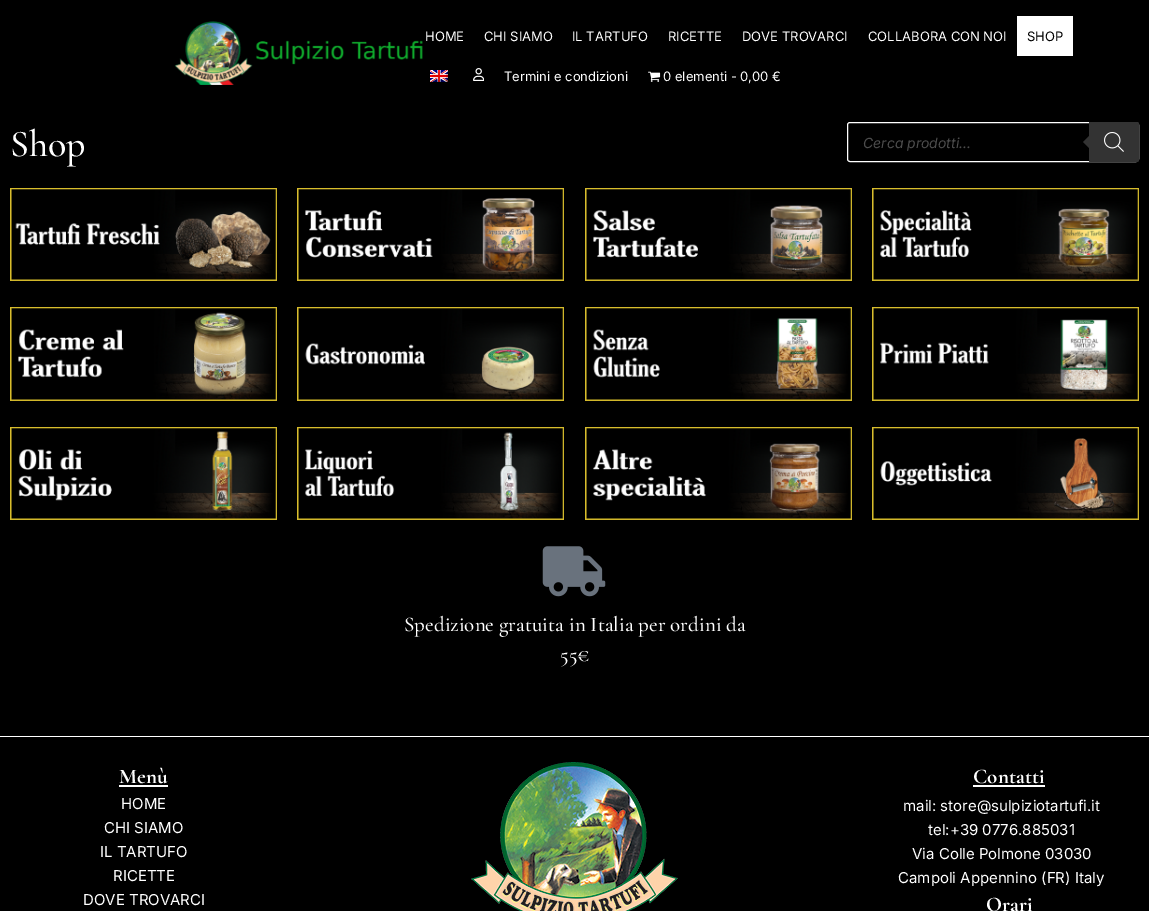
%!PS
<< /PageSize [1149 911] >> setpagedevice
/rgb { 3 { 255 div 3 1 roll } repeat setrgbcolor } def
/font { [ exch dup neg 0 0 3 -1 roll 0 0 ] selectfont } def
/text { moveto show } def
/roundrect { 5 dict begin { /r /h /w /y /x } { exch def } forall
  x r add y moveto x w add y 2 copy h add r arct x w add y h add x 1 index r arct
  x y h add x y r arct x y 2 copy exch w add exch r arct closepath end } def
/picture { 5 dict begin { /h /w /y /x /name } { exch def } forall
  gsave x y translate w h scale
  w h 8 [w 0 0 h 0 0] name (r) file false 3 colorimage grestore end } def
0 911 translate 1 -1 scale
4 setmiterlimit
0 0 0 rgb
0 0 1149 911 rectfill
(img_01.rgb) 174 21 249 64 picture
255 255 255 rgb
1017 16 56 40 rectfill
(img_02.rgb) 430 70 18 12 picture
(img_03.rgb) 473 68 11 13 picture
(img_04.rgb) 648 71 13 11 picture
847.5 122.5 291 39 2.5 roundrect stroke
51 51 51 rgb
1089 122 moveto 48 0 rlineto 1 0 2 1 2 2 rcurveto 0 36 rlineto 0 1 -1 2 -2 2 rcurveto -48 0 rlineto closepath fill
1091 134 moveto 0 16 rlineto -8 -8 rlineto closepath fill
(img_05.rgb) 1104 132 20 20 picture
(img_06.rgb) 10 188 267 93 picture
(img_07.rgb) 297 188 267 93 picture
(img_08.rgb) 585 188 267 93 picture
(img_09.rgb) 872 188 267 93 picture
(img_10.rgb) 10 307 267 94 picture
(img_11.rgb) 297 307 267 94 picture
(img_12.rgb) 585 307 267 94 picture
(img_13.rgb) 872 307 267 94 picture
(img_14.rgb) 10 427 267 93 picture
(img_15.rgb) 297 427 267 93 picture
(img_16.rgb) 585 427 267 93 picture
(img_17.rgb) 872 427 267 93 picture
(img_18.rgb) 542 546 64 51 picture
255 255 255 rgb
0 736 1149 1 rectfill
119 785 49 2 rectfill
(img_19.rgb) 471 762 207 149 picture
973 785 72 2 rectfill
/Inter-Regular 13 font
(HOME) 425 41 text
(CHI SIAMO) 484 41 text
(IL TARTUFO) 572 41 text
(RICETTE) 668 41 text
(DOVE TROVARCI) 742 41 text
(COLLABORA CON NOI) 868 41 text
0 0 0 rgb
(SHOP) 1027 41 text
255 255 255 rgb
(Termini e condizioni) 504 81 text
(0 elementi) 663 81 text
(-) 731 81 text
(0,00 €) 740 81 text
/CormorantGaramond-Medium 38 font
(Shop) 10 156 text
/Inter-Italic 14 font
77 77 77 rgb
(Cerca prodotti...) 863 148 text
/CormorantGaramond-Medium 21 font
255 255 255 rgb
(Spedizione gratuita in Italia per ordini da) 404 631 text
(55€) 560 661 text
/CormorantGaramond-Bold 21 font
(Menù) 119 783 text
/Inter-Regular 15 font
(HOME) 121 809 text
(CHI SIAMO) 104 833 text
(IL TARTUFO) 100 857 text
(RICETTE) 113 881 text
(DOVE TROVARCI) 83 905 text
/CormorantGaramond-Bold 21 font
(Contatti) 973 783 text
/Inter-Regular 15 font
(mail: store@sulpiziotartufi.it) 903 811 text
(tel:+39 0776.885031) 928 835 text
(Via Colle Polmone 03030) 912 859 text
(Campoli Appennino \(FR\) Italy) 898 883 text
/CormorantGaramond-Bold 21 font
(Orari) 986 911 text
showpage
